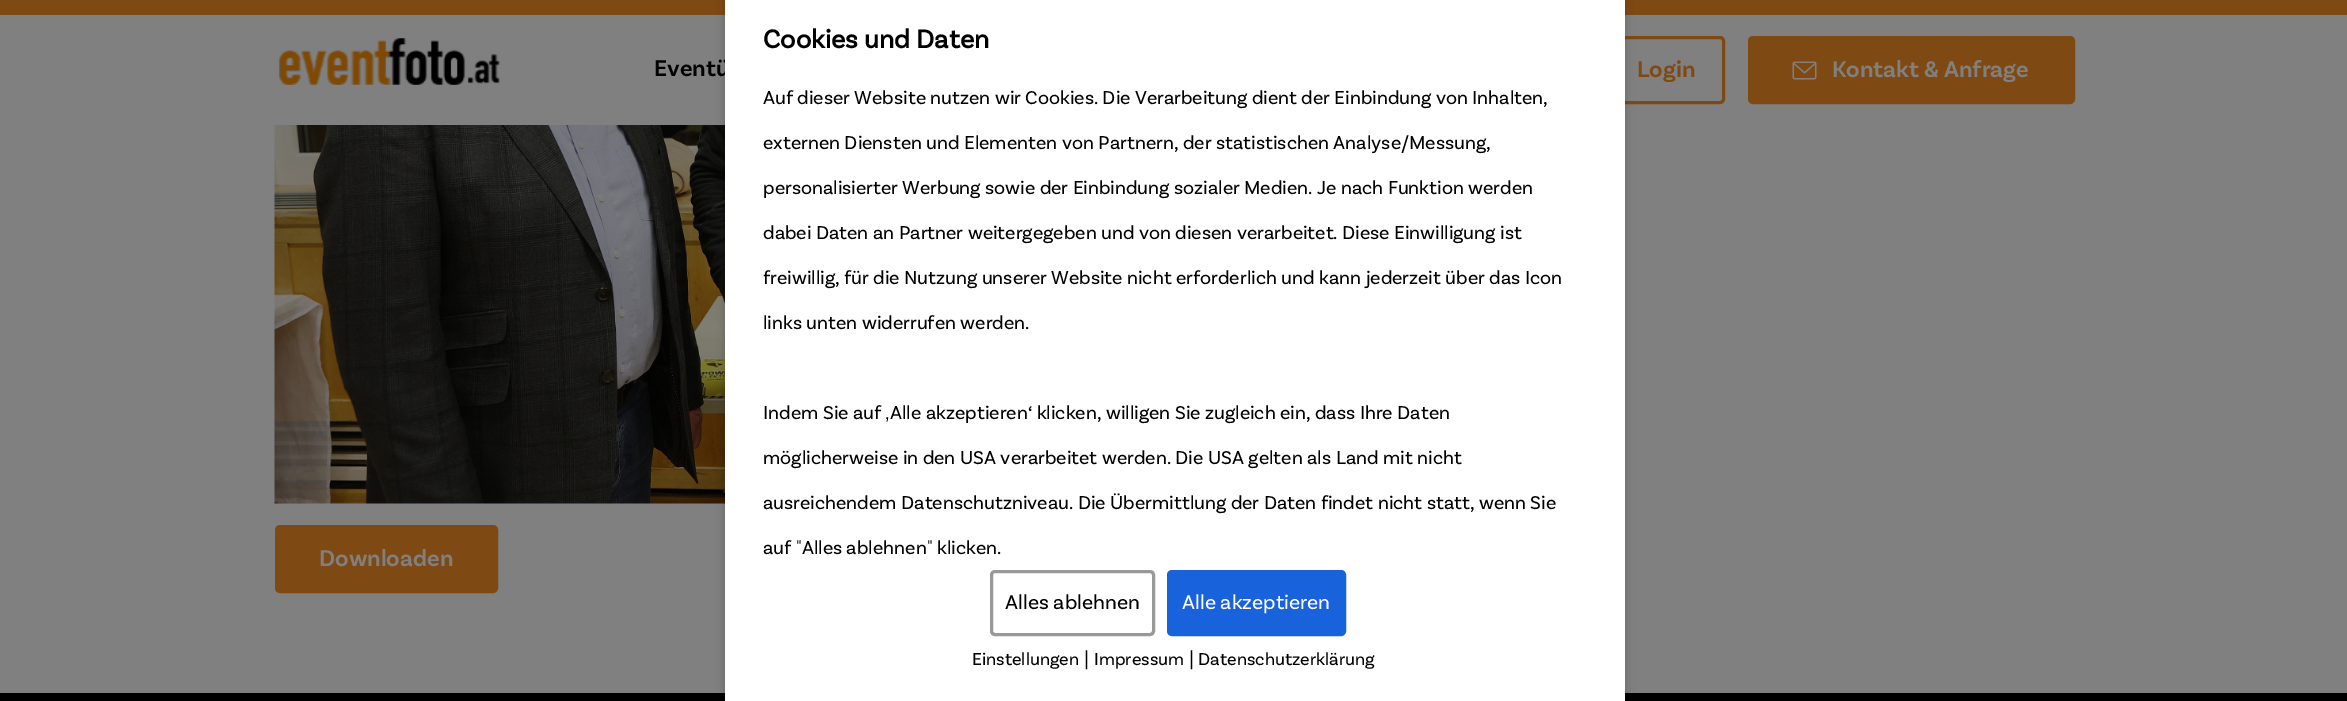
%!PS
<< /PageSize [2347 701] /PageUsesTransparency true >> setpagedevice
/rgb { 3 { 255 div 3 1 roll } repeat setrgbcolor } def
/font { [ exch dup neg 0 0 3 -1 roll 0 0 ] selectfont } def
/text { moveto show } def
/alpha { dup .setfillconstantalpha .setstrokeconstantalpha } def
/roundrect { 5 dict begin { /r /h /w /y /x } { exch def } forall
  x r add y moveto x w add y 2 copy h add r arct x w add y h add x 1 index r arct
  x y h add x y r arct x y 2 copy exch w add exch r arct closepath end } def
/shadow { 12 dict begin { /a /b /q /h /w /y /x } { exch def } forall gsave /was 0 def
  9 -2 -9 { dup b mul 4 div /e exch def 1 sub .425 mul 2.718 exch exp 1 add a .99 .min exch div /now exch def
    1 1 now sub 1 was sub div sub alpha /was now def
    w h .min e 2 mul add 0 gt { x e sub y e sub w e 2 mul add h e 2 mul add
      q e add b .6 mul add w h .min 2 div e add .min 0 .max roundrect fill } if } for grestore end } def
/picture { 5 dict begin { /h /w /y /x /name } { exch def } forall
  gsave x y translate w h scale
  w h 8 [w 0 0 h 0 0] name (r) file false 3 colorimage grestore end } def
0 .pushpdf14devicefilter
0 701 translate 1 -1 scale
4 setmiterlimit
128 128 128 rgb
0 0 2347 701 rectfill
127 73 19 rgb
0 0 2347 15 rectfill
3 setlinewidth
1569.5 37.5 154 65 3.5 roundrect stroke
(img_03.rgb) 274 125 451 379 picture
0 0 0 rgb
0 693 2347 8 rectfill
725 -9 900 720 9 4.5 0.2 shadow
(img_01.rgb) 279 38 222 47 picture
127 73 19 rgb
1749.5 37.5 324 65 3.5 roundrect gsave fill grestore
stroke
(img_02.rgb) 1792 61 25 19 picture
276.5 526.5 220 65 3.5 roundrect gsave fill grestore
stroke
/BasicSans-SemiBold 24 font
0 0 0 rgb
(Eventü) 654 76 text
255 255 255 rgb
725 0 900 701 rectfill
/BasicSans-Regular 18 font
0 0 0 rgb
(Datenschutzerklärung) 1198 665 text
/BasicSans-Regular 21 font
(|) 1189 665 text
/BasicSans-Regular 18 font
(Impressum) 1094 665 text
/BasicSans-Regular 21 font
(|) 1084 665 text
/BasicSans-Regular 18 font
(Einstellungen) 972 665 text
24 99 220 rgb
1168.5 571.5 176 63 3.5 roundrect gsave fill grestore
stroke
/BasicSans-Regular 21 font
255 255 255 rgb
(Alle akzeptieren) 1182 609 text
153 153 153 rgb
991.5 571.5 162 63 3.5 roundrect stroke
0 0 0 rgb
(Alles ablehnen) 1005 609 text
/BasicSans-Regular 19.5 font
(auf "Alles ablehnen" klicken.) 763 554 text
(ausreichendem Datenschutzniveau. Die Übermittlung der Daten findet nicht statt, wenn Sie) 763 509 text
(möglicherweise in den USA verarbeitet werden. Die USA gelten als Land mit nicht) 763 464 text
(Alle akzeptieren‘ klicken, willigen Sie zugleich ein, dass Ihre Daten) 890 419 text
/LiberationSans-Regular 19.5 font
(‚) 885 419 text
/BasicSans-Regular 19.5 font
(Indem Sie auf) 763 419 text
(links unten widerrufen werden.) 763 329 text
(freiwillig, für die Nutzung unserer Website nicht erforderlich und kann jederzeit über das Icon) 763 284 text
(dabei Daten an Partner weitergegeben und von diesen verarbeitet. Diese Einwilligung ist) 763 239 text
(personalisierter Werbung sowie der Einbindung sozialer Medien. Je nach Funktion werden) 763 194 text
(externen Diensten und Elementen von Partnern, der statistischen Analyse/Messung,) 763 149 text
(Auf dieser Website nutzen wir Cookies. Die Verarbeitung dient der Einbindung von Inhalten,) 763 104 text
/BasicSans-Bold 27 font
(Cookies und Daten) 763 48 text
/BasicSans-SemiBold 24 font
127 73 19 rgb
(Login) 1637 77 text
128 128 128 rgb
(Kontakt & Anfrage) 1832 77 text
(Downloaden) 319 566 text
.poppdf14devicefilter showpage
